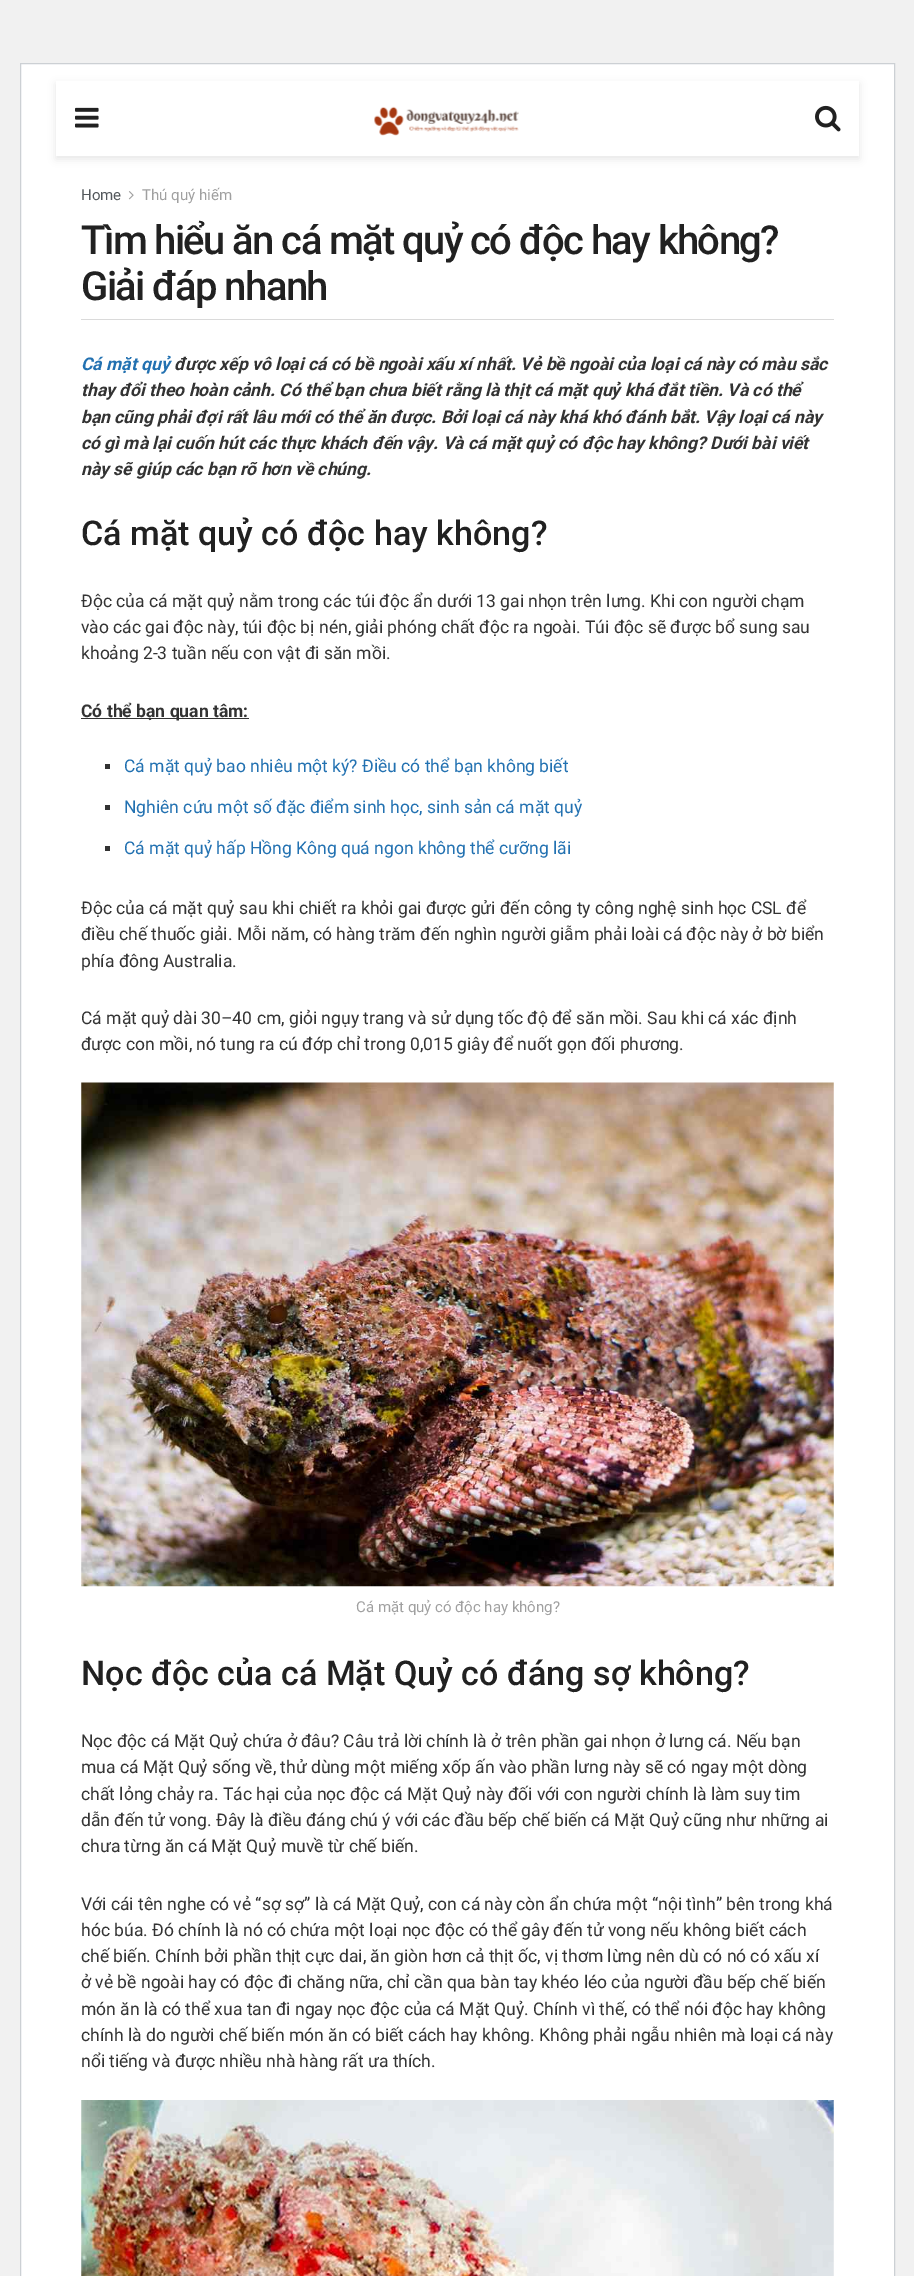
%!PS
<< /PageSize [914 2276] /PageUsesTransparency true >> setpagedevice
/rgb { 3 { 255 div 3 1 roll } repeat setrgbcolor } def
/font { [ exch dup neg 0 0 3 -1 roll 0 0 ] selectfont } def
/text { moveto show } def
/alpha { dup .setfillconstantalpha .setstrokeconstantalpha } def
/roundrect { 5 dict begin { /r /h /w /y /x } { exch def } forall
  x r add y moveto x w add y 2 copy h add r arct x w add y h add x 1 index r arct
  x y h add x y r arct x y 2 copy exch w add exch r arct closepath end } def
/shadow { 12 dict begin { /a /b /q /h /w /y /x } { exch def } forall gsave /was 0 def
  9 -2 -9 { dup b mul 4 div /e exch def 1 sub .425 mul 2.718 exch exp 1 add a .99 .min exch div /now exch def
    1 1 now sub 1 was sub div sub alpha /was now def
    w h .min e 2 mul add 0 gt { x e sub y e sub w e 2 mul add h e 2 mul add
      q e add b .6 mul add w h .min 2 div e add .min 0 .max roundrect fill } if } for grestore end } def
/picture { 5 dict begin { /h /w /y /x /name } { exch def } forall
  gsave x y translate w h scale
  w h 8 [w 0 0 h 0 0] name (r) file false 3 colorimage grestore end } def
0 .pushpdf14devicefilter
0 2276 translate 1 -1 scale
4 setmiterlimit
241 241 241 rgb
0 0 914 2276 rectfill
255 255 255 rgb
20.5 63.5 moveto 874 0 rlineto 0 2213 rlineto -874 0 rlineto closepath gsave fill grestore
204 208 212 rgb
stroke
0 0 0 rgb
56 84 803 75 0 4 0.1 shadow
255 255 255 rgb
56 81 803 75 rectfill
(img_01.rgb) 75 107 24 21 picture
(img_02.rgb) 374 106 145 30 picture
(img_03.rgb) 815 105 26 27 picture
(img_04.rgb) 128 191 6 9 picture
218 218 218 rgb
81 319 753 1 rectfill
51 51 51 rgb
81 718 168 1 rectfill
105 764 5 5 rectfill
105 805 5 5 rectfill
105 846 5 5 rectfill
(img_05.rgb) 81 1082 753 505 picture
(img_06.rgb) 81 2100 753 176 picture
/Roboto-Regular 15 font
83 88 92 rgb
(Home) 81 200 text
160 160 160 rgb
(Thú quý hiếm) 142 200 text
/Roboto-Medium 40 font
33 33 33 rgb
81 254 moveto -1.6 0 (Tìm hiểu ăn cá mặt quỷ có độc hay không?) ashow
81 300 moveto -1.6 0 (Giải đáp nhanh) ashow
/Roboto-BoldItalic 17.5 font
34 113 177 rgb
(Cá mặt quỷ) 81 370 text
51 51 51 rgb
(được xếp vô loại cá có bề ngoài xấu xí nhất. Vẻ bề ngoài của loại cá này có màu sắc) 174 370 text
(thay đổi theo hoàn cảnh. Có thể bạn chưa biết rằng là thịt cá mặt quỷ khá đắt tiền. Và có thể) 81 396 text
(bạn cũng phải đợi rất lâu mới có thể ăn được. Bởi loại cá này khá khó đánh bắt. Vậy loại cá này) 81 423 text
(có gì mà lại cuốn hút các thực khách đến vậy. Và cá mặt quỷ có độc hay không? Dưới bài viết) 81 449 text
(này sẽ giúp các bạn rõ hơn về chúng.) 81 475 text
/Roboto-Medium 34.1 font
33 33 33 rgb
(Cá mặt quỷ có độc hay không?) 81 545 text
/Roboto-Regular 17.5 font
51 51 51 rgb
(Độc của cá mặt quỷ nằm trong các túi độc ẩn dưới 13 gai nhọn trên lưng. Khi con người chạm) 81 607 text
(vào các gai độc này, túi độc bị nén, giải phóng chất độc ra ngoài. Túi độc sẽ được bổ sung sau) 81 633 text
(khoảng 2-3 tuần nếu con vật đi săn mồi.) 81 659 text
/Roboto-Bold 17.5 font
(Có thể bạn quan tâm:) 81 717 text
/Roboto-Regular 17.5 font
34 113 177 rgb
(Cá mặt quỷ bao nhiêu một ký? Điều có thể bạn không biết) 124 772 text
(Nghiên cứu một số đặc điểm sinh học, sinh sản cá mặt quỷ) 124 813 text
(Cá mặt quỷ hấp Hồng Kông quá ngon không thể cưỡng lãi) 124 854 text
51 51 51 rgb
(Độc của cá mặt quỷ sau khi chiết ra khỏi gai được gửi đến công ty công nghệ sinh học CSL để) 81 914 text
(điều chế thuốc giải. Mỗi năm, có hàng trăm đến nghìn người giẫm phải loài cá độc này ở bờ biển) 81 940 text
(phía đông Australia.) 81 967 text
(Cá mặt quỷ dài 30–40 cm, giỏi ngụy trang và sử dụng tốc độ để săn mồi. Sau khi cá xác định) 81 1024 text
(được con mồi, nó tung ra cú đớp chỉ trong 0,015 giây để nuốt gọn đối phương.) 81 1050 text
/Roboto-Regular 15 font
160 160 160 rgb
(Cá mặt quỷ có độc hay không?) 356 1612 text
/Roboto-Medium 34.1 font
33 33 33 rgb
(Nọc độc của cá Mặt Quỷ có đáng sợ không?) 81 1685 text
/Roboto-Regular 17.5 font
51 51 51 rgb
(Nọc độc cá Mặt Quỷ chứa ở đâu? Câu trả lời chính là ở trên phần gai nhọn ở lưng cá. Nếu bạn) 81 1747 text
(mua cá Mặt Quỷ sống về, thử dùng một miếng xốp ấn vào phần lưng này sẽ có ngay một dòng) 81 1773 text
(chất lỏng chảy ra. Tác hại của nọc độc cá Mặt Quỷ này đối với con người chính là làm suy tim) 81 1800 text
(dẫn đến tử vong. Đây là điều đáng chú ý với các đầu bếp chế biến cá Mặt Quỷ cũng như những ai) 81 1826 text
(chưa từng ăn cá Mặt Quỷ muvề từ chế biến.) 81 1852 text
(Với cái tên nghe có vẻ “sợ sợ” là cá Mặt Quỷ, con cá này còn ẩn chứa một “nội tình” bên trong khá) 81 1910 text
(hóc búa. Đó chính là nó có chứa một loại nọc độc có thể gây đến tử vong nếu không biết cách) 81 1936 text
(chế biến. Chính bởi phần thịt cực dai, ăn giòn hơn cả thịt ốc, vị thơm lừng nên dù có nó có xấu xí) 81 1962 text
(ở vẻ bề ngoài hay có độc đi chăng nữa, chỉ cần qua bàn tay khéo léo của người đầu bếp chế biến) 81 1988 text
(món ăn là có thể xua tan đi ngay nọc độc của cá Mặt Quỷ. Chính vì thế, có thể nói độc hay không) 81 2015 text
(chính là do người chế biến món ăn có biết cách hay không. Không phải ngẫu nhiên mà loại cá này) 81 2041 text
(nổi tiếng và được nhiều nhà hàng rất ưa thích.) 81 2067 text
.poppdf14devicefilter showpage
